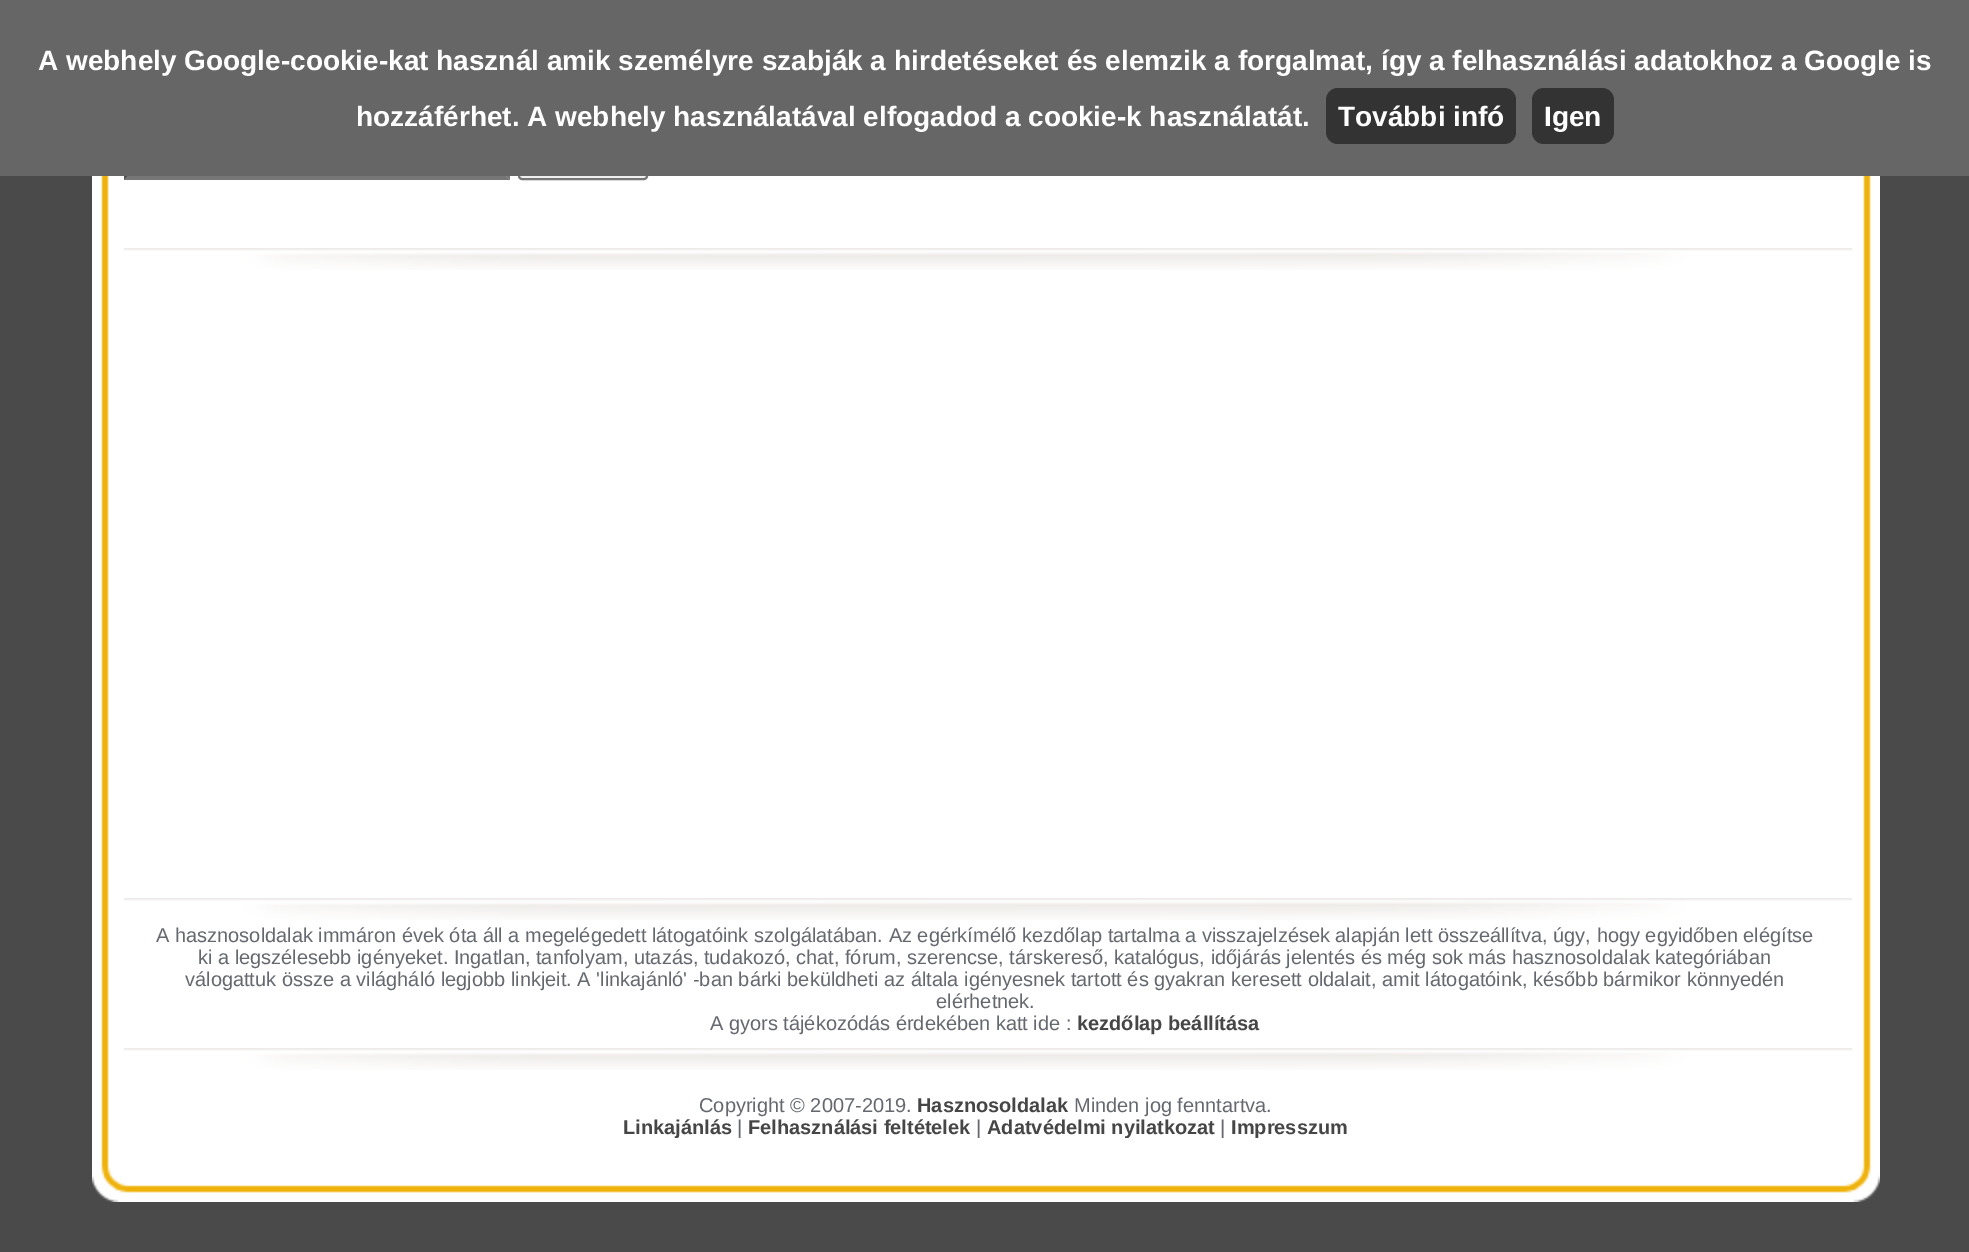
%!PS
<< /PageSize [1969 1252] >> setpagedevice
/rgb { 3 { 255 div 3 1 roll } repeat setrgbcolor } def
/font { [ exch dup neg 0 0 3 -1 roll 0 0 ] selectfont } def
/text { moveto show } def
/roundrect { 5 dict begin { /r /h /w /y /x } { exch def } forall
  x r add y moveto x w add y 2 copy h add r arct x w add y h add x 1 index r arct
  x y h add x y r arct x y 2 copy exch w add exch r arct closepath end } def
/picture { 5 dict begin { /h /w /y /x /name } { exch def } forall
  gsave x y translate w h scale
  w h 8 [w 0 0 h 0 0] name (r) file false 3 colorimage grestore end } def
0 1252 translate 1 -1 scale
4 setmiterlimit
74 74 74 rgb
0 0 1969 1252 rectfill
(img_01.rgb) 92 176 1788 962 picture
118 118 118 rgb
510 138 moveto 0 42 rlineto -4 -4 rlineto 0 -34 rlineto closepath fill
510 180 moveto -386 0 rlineto 4 -4 rlineto 378 0 rlineto closepath fill
79 79 79 rgb
124 180 moveto 0 -42 rlineto 4 4 rlineto 0 34 rlineto closepath fill
239 239 239 rgb
519 139 128 40 3 roundrect gsave fill grestore
118 118 118 rgb
2 setlinewidth
stroke
102 102 102 rgb
0 0 1969 176 rectfill
51 51 51 rgb
1326 88 190 56 12 roundrect fill
1532 88 82 56 12 roundrect fill
(img_02.rgb) 124 248 1728 22 picture
(img_02.rgb) 124 898 1728 22 picture
(img_02.rgb) 124 1048 1728 22 picture
/LiberationSans-Bold 28 font
255 255 255 rgb
(A webhely Google-cookie-kat használ amik személyre szabják a hirdetéseket és elemzik a forgalmat, így a felhasználási adatokhoz a Google is) 38 70 text
(hozzáférhet. A webhely használatával elfogadod a cookie-k használatát.) 356 126 text
(További infó) 1338 126 text
(Igen) 1544 126 text
/LiberationSans-Regular 20 font
101 104 110 rgb
(A hasznosoldalak immáron évek óta áll a megelégedett látogatóink szolgálatában. Az egérkímélő kezdőlap tartalma a visszajelzések alapján lett összeállítva, úgy, hogy egyidőben elégítse) 156 942 text
(ki a legszélesebb igényeket. Ingatlan, tanfolyam, utazás, tudakozó, chat, fórum, szerencse, társkereső, katalógus, időjárás jelentés és még sok más hasznosoldalak kategóriában) 198 964 text
(válogattuk össze a világháló legjobb linkjeit. A 'linkajánló' -ban bárki beküldheti az általa igényesnek tartott és gyakran keresett oldalait, amit látogatóink, később bármikor könnyedén) 185 986 text
(elérhetnek.) 936 1008 text
(A gyors tájékozódás érdekében katt ide :) 710 1030 text
/LiberationSans-Bold 20 font
70 70 70 rgb
(kezdőlap beállítása) 1077 1030 text
/LiberationSans-Regular 20 font
101 104 110 rgb
(Copyright © 2007-2019.) 699 1112 text
/LiberationSans-Bold 20 font
70 70 70 rgb
(Hasznosoldalak) 917 1112 text
/LiberationSans-Regular 20 font
101 104 110 rgb
(Minden jog fenntartva.) 1074 1112 text
/LiberationSans-Bold 20 font
70 70 70 rgb
(Linkajánlás) 623 1134 text
/LiberationSans-Regular 20 font
101 104 110 rgb
(|) 737 1134 text
/LiberationSans-Bold 20 font
70 70 70 rgb
(Felhasználási feltételek) 748 1134 text
/LiberationSans-Regular 20 font
101 104 110 rgb
(|) 976 1134 text
/LiberationSans-Bold 20 font
70 70 70 rgb
(Adatvédelmi nyilatkozat) 987 1134 text
/LiberationSans-Regular 20 font
101 104 110 rgb
(|) 1220 1134 text
/LiberationSans-Bold 20 font
70 70 70 rgb
(Impresszum) 1231 1134 text
(img_03.rgb) 92 1138 1788 64 picture
showpage
